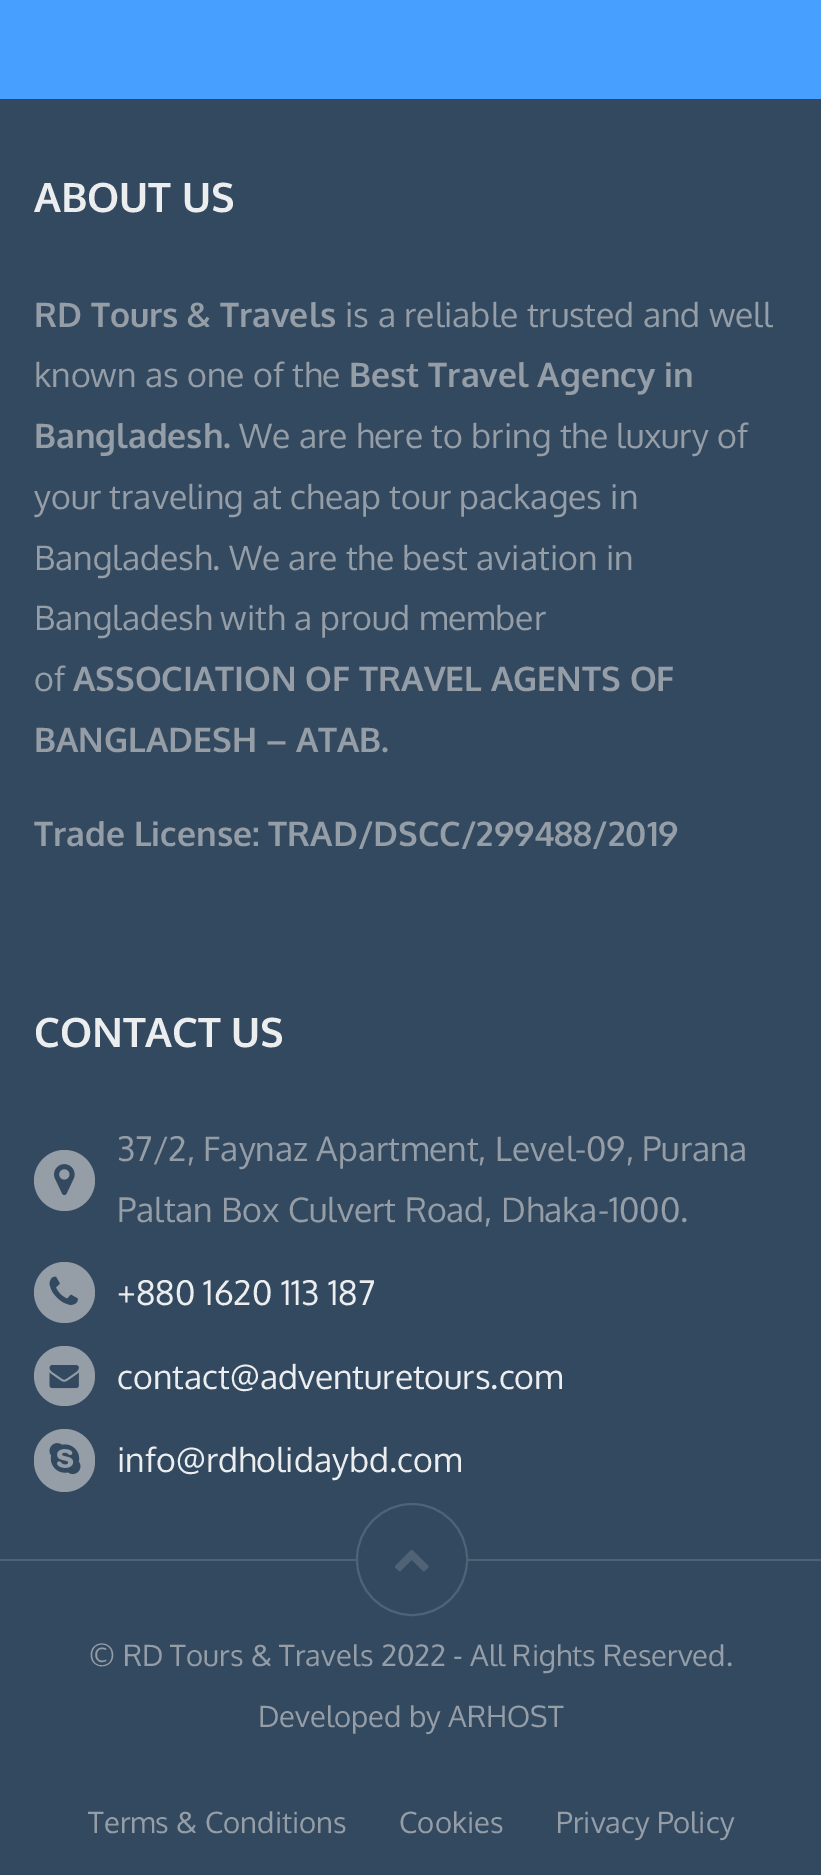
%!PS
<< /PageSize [821 1875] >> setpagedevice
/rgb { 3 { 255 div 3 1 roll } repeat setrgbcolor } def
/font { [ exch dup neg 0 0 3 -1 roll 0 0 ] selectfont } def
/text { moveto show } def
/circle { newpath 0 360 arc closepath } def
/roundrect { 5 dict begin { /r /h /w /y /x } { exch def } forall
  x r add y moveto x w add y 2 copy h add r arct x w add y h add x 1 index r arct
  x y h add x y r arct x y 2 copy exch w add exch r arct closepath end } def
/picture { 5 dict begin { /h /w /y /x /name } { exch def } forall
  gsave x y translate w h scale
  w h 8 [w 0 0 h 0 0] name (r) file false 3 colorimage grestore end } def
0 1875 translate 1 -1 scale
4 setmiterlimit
51 73 96 rgb
0 0 821 1875 rectfill
71 160 255 rgb
0 0 821 99 rectfill
149 157 167 rgb
64.5 1180.5 30.5 circle fill
(img_01.rgb) 54 1164 21 32 picture
64.5 1292.5 30.5 circle fill
(img_02.rgb) 49 1276 29 29 picture
34 1346 61 60 30 roundrect fill
(img_03.rgb) 49 1365 30 24 picture
34 1429 61 63 30.5 roundrect fill
(img_04.rgb) 49 1443 32 32 picture
80 98 117 rgb
0 1559 821 2 rectfill
51 73 96 rgb
357 1504 110 111 55 roundrect gsave fill grestore
80 98 117 rgb
2 setlinewidth
stroke
(img_05.rgb) 395 1549 34 23 picture
/Oxygen-Bold 40.5 font
235 237 239 rgb
(ABOUT US) 34 212 text
/Oxygen-Bold 33.75 font
149 157 167 rgb
(RD Tours & Travels) 34 327 text
/Oxygen-Regular 33.75 font
(is a reliable trusted and well) 345 327 text
(known as one of the) 34 387 text
/Oxygen-Bold 33.75 font
(Best Travel Agency in) 349 387 text
(Bangladesh.) 34 448 text
/Oxygen-Regular 33.75 font
(We are here to bring the luxury of) 239 448 text
(your traveling at cheap tour packages in) 34 509 text
(Bangladesh. We are the best aviation in) 34 570 text
(Bangladesh with a proud member) 34 630 text
(of) 34 691 text
/Oxygen-Bold 33.75 font
(ASSOCIATION OF TRAVEL AGENTS OF) 73 691 text
(BANGLADESH – ATAB.) 34 752 text
(Trade License: TRAD/DSCC/299488/2019) 34 846 text
/Oxygen-Bold 40.5 font
235 237 239 rgb
(CONTACT US) 34 1047 text
/Oxygen-Regular 33.75 font
149 157 167 rgb
(37/2, Faynaz Apartment, Level-09, Purana) 117 1161 text
(Paltan Box Culvert Road, Dhaka-1000.) 117 1222 text
235 237 239 rgb
(+880 1620 113 187) 117 1305 text
(contact@adventuretours.com) 117 1389 text
(info@rdholidaybd.com) 117 1472 text
/Oxygen-Regular 29.25 font
149 157 167 rgb
(© RD Tours & Travels 2022 - All Rights Reserved.) 89 1666 text
(Developed by ARHOST) 258 1727 text
(Terms & Conditions) 88 1833 text
(Cookies) 399 1833 text
(Privacy Policy) 556 1833 text
showpage
